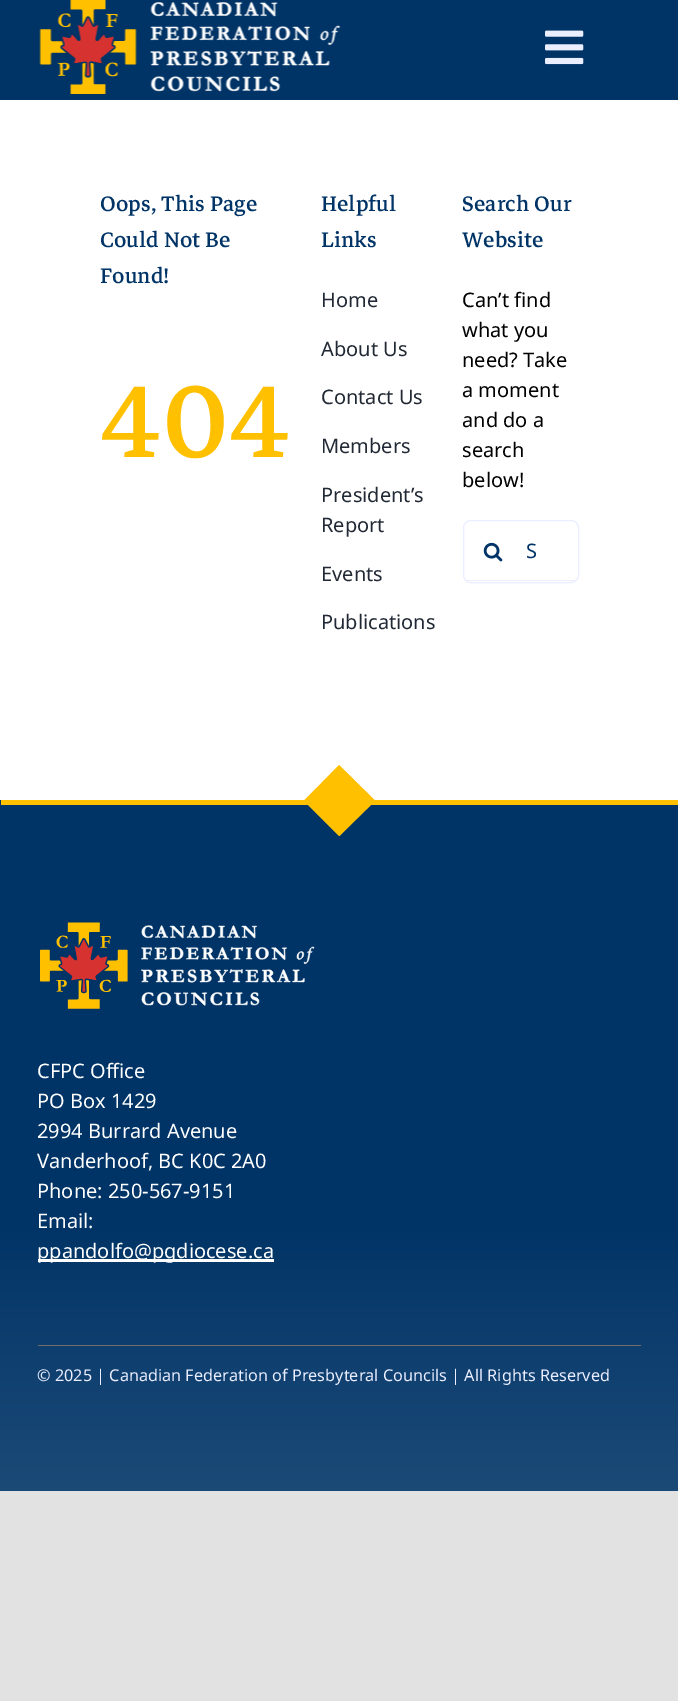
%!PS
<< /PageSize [678 1701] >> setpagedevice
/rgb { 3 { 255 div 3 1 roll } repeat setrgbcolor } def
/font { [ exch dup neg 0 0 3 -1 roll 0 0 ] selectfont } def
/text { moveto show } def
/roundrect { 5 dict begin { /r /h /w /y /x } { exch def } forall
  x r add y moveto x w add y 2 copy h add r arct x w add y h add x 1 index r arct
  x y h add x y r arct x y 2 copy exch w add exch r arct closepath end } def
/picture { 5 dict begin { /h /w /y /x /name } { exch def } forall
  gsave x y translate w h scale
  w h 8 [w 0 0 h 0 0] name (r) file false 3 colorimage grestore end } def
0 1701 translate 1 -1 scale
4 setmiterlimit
226 226 226 rgb
0 0 678 1701 rectfill
255 255 255 rgb
0 100 678 700 rectfill
0 51 102 rgb
0 0 678 100 rectfill
(img_01.rgb) 39 0 302 94 picture
(img_02.rgb) 545 30 39 35 picture
234 238 255 rgb
463.5 520.5 115 62 7.5 roundrect stroke
(img_03.rgb) 483 542 20 20 picture
466 580 109 1 rectfill
gsave 0 800 moveto 678 0 rlineto 0 691 rlineto -678 0 rlineto closepath clip newpath
<< /ShadingType 2 /ColorSpace /DeviceRGB /Coords [339 1491 339 800] /Extend [true true] /Function << /FunctionType 3 /Domain [0 1] /Functions [<< /FunctionType 2 /Domain [0 1] /C0 [0.11 0.29 0.467] /C1 [0 0.2 0.4] /N 1 >> << /FunctionType 2 /Domain [0 1] /C0 [0 0.2 0.4] /C1 [0 0.2 0.4] /N 1 >>] /Bounds [0.41] /Encode [0 1 0 1] >> >> shfill grestore
255 192 0 rgb
1 800 677 5 rectfill
375 801 moveto -36 35 rlineto -35 -35 rlineto 35 -36 rlineto closepath fill
1.3 setlinewidth
374 800.5 moveto -34.5 34.5 rlineto -34.5 -34.5 rlineto 34.5 -34 rlineto closepath stroke
(img_04.rgb) 40 922 275 87 picture
255 255 255 rgb
38 1259 236 3 rectfill
115 110 106 rgb
38 1345 603 1 rectfill
/MarkaziText-Regular 30 font
0 51 102 rgb
(Oops, This Page) 100 211 text
(Could Not Be) 100 247 text
(Found!) 100 283 text
/MarkaziText-Regular 150 font
255 192 0 rgb
(404) 100 457 text
/MarkaziText-Regular 30 font
0 51 102 rgb
(Helpful) 321 211 text
(Links) 321 247 text
/NotoSans-Regular 20 font
33 41 52 rgb
(Home) 321 307 text
(About Us) 321 356 text
(Contact Us) 321 404 text
(Members) 321 453 text
(President’s) 321 502 text
(Report) 321 532 text
(Events) 321 581 text
(Publications) 321 629 text
/MarkaziText-Regular 30 font
0 51 102 rgb
(Search Our) 462 211 text
(Website) 462 247 text
/NotoSans-Regular 20 font
0 0 0 rgb
(Can’t find) 462 307 text
(what you) 462 337 text
(need? Take) 462 367 text
(a moment) 462 397 text
(and do a) 462 427 text
(search) 462 457 text
(below!) 462 487 text
0 51 102 rgb
(S) 526 558 text
255 255 255 rgb
(CFPC Office) 37 1078 text
(PO Box 1429) 37 1108 text
(2994 Burrard Avenue) 37 1138 text
(Vanderhoof, BC K0C 2A0) 37 1168 text
(Phone: 250-567-9151) 37 1198 text
(Email:) 37 1228 text
(ppandolfo@pgdiocese.ca) 37 1258 text
/NotoSans-Regular 16.25 font
234 238 255 rgb
(© 2025 | Canadian Federation of Presbyteral Councils | All Rights Reserved) 37 1381 text
showpage
